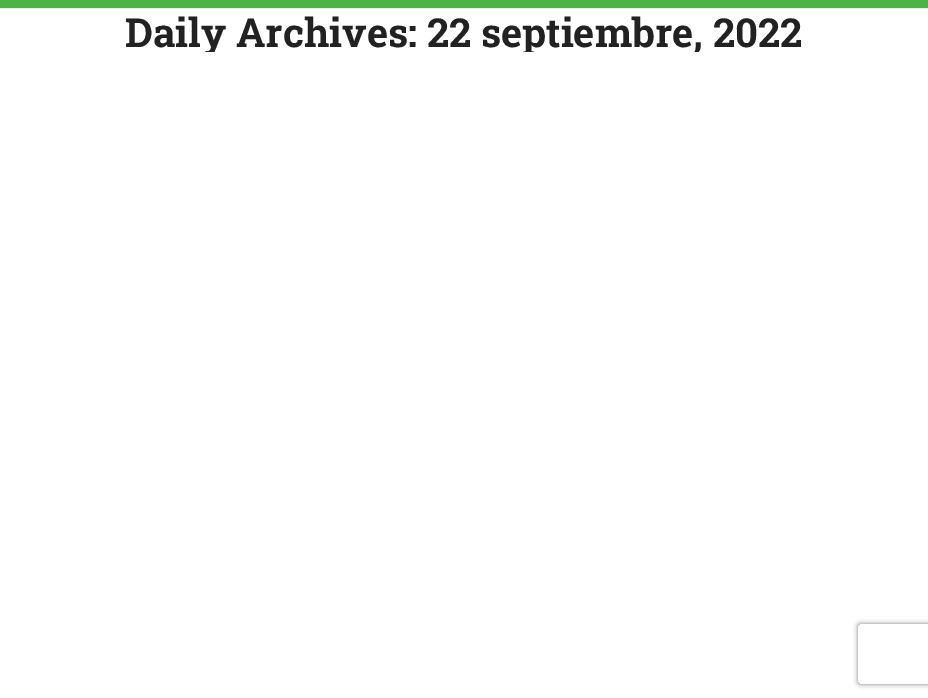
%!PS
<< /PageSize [928 698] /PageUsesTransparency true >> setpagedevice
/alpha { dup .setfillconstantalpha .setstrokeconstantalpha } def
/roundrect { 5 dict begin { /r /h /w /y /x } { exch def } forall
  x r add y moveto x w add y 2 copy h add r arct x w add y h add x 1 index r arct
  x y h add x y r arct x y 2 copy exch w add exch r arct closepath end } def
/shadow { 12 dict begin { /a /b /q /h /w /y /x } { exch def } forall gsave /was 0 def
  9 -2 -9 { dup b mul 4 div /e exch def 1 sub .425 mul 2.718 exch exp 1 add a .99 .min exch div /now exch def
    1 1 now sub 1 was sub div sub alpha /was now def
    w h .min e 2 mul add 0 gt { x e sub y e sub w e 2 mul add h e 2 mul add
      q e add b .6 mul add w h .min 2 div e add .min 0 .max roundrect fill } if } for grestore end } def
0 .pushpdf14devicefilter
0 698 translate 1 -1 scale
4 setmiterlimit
1 setgray
0 0 928 698 rectfill
0.922 setgray
0 8 928 1 rectfill
0.29 0.71 0.251 setrgbcolor
0 0 928 8 rectfill
gsave
125 12 678 40 rectclip
/RobotoSlab-Bold [40 0 0 -40 0 0] selectfont
0.133 setgray
125 47 moveto (Daily Archives: 22 septiembre, 2022) show
grestore
gsave
newpath 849 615 moveto 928 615 lineto 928 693 lineto 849 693 lineto closepath 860 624 moveto 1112 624 lineto 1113 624 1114 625 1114 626 curveto 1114 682 lineto 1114 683 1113 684 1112 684 curveto 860 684 lineto 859 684 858 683 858 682 curveto 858 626 lineto 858 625 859 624 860 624 curveto closepath eoclip newpath
0.502 setgray
858 624 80 60 2 2.5 1 shadow
grestore
.poppdf14devicefilter showpage
